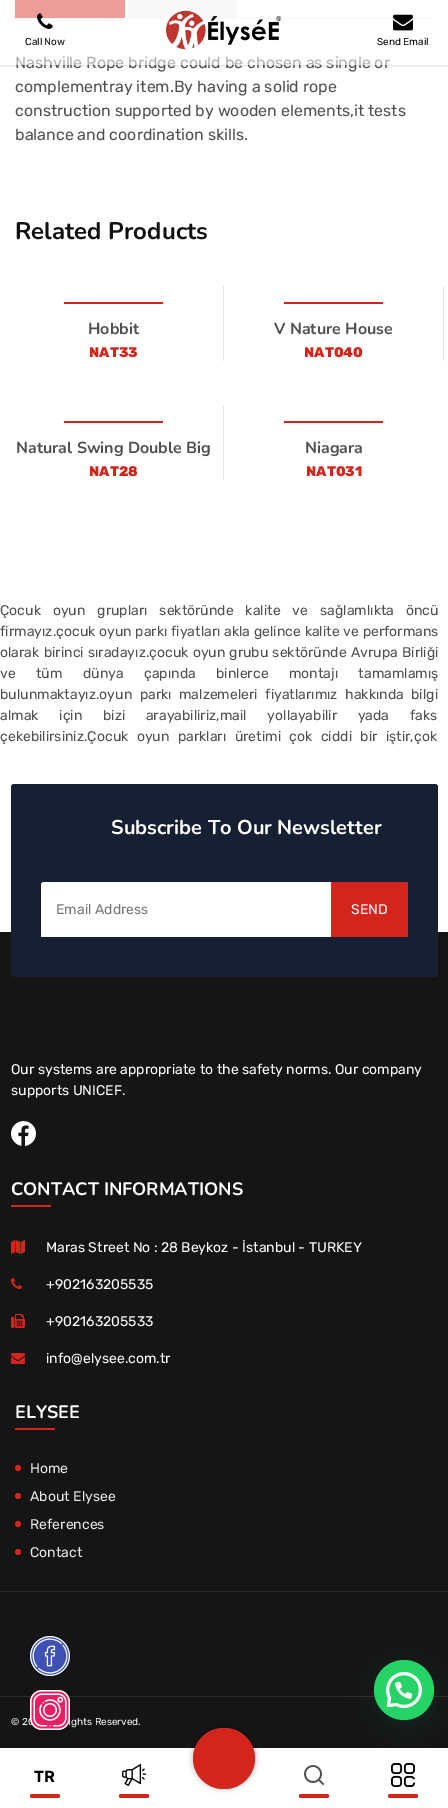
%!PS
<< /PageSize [448 1808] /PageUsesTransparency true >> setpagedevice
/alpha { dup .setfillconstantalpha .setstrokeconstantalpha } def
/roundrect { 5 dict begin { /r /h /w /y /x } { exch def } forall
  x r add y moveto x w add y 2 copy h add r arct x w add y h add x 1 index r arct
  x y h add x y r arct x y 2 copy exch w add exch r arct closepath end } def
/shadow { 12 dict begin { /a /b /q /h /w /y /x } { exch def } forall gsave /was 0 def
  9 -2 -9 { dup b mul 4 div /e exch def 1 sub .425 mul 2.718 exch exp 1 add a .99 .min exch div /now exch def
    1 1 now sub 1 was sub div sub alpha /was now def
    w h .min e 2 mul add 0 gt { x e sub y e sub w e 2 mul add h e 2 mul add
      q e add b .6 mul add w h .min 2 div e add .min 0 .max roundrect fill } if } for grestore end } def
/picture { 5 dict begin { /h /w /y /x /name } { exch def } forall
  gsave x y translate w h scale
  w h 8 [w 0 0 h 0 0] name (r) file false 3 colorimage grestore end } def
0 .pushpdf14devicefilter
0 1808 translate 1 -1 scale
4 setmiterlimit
1 setgray
0 0 448 1808 rectfill
0.941 setgray
15 18 418 1 rectfill
0.831 0.145 0.114 setrgbcolor
15 0 110 18 rectfill
0.941 setgray
128 0 109 18 rectfill
gsave
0 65 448 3 rectclip
0 setgray
0 0 448 65 0 2 0.2 shadow
grestore
/Rubik-Regular [16 0 0 -16 0 0] selectfont
0.314 setgray
15 68 moveto (Nashville Rope bridge could be chosen as single or) show
0.55 alpha
1 setgray
15 0 418 65 rectfill
1 alpha
(img1.rgb) 37 13 16 16 picture
/Rubik-Regular [10 0 0 -10 0 0] selectfont
0 setgray
25 45 moveto (Call Now) show
(img2.rgb) 166 10 116 40 picture
(img3.rgb) 393 14 20 17 picture
377 45 moveto (Send Email) show
/Rubik-SemiBold [16 0 0 -16 0 0] selectfont
34 1782 moveto (TR) show
0.831 0.145 0.114 setrgbcolor
30 1794 30 4 2 roundrect fill
(img4.rgb) 122 1764 24 22 picture
119 1794 30 4 2 roundrect fill
0.082 setgray
0 932 448 816 rectfill
0 setgray
192 1726 64 63 31.5 3 0.2 shadow
0.831 0.145 0.114 setrgbcolor
193 1728 62 61 30.5 roundrect fill
(img5.rgb) 304 1765 20 20 picture
299 1794 30 4 2 roundrect fill
(img6.rgb) 391 1763 24 24 picture
388 1794 30 4 2 roundrect fill
/Rubik-Regular [16 0 0 -16 0 0] selectfont
0.314 setgray
15 92 moveto (complementray item.By having a solid rope) show
15 116 moveto (construction supported by wooden elements,it tests) show
15 140 moveto (balance and coordination skills.) show
/Nunito-Bold [24 0 0 -24 0 0] selectfont
0.067 setgray
15 239 moveto (Related Products) show
0.902 setgray
223 286 1 75 rectfill
0.831 0.145 0.114 setrgbcolor
64 302 99 2 rectfill
/Nunito-Bold [16 0 0 -16 0 0] selectfont
0.314 setgray
88 334 moveto (Hobbit) show
/Rubik-ExtraBold [14 0 0 -14 0 0] selectfont
0.831 0.145 0.114 setrgbcolor
89 357 moveto (NAT33) show
0.902 setgray
443 286 1 75 rectfill
0.831 0.145 0.114 setrgbcolor
284 302 99 2 rectfill
/Nunito-Bold [16 0 0 -16 0 0] selectfont
0.314 setgray
274 334 moveto (V Nature House) show
/Rubik-ExtraBold [14 0 0 -14 0 0] selectfont
0.831 0.145 0.114 setrgbcolor
304 357 moveto (NAT040) show
0.902 setgray
223 406 1 74 rectfill
0.831 0.145 0.114 setrgbcolor
64 421 99 2 rectfill
/Nunito-Bold [16 0 0 -16 0 0] selectfont
0.314 setgray
16 453 moveto (Natural Swing Double Big) show
/Rubik-ExtraBold [14 0 0 -14 0 0] selectfont
0.831 0.145 0.114 setrgbcolor
89 476 moveto (NAT28) show
284 421 99 2 rectfill
/Nunito-Bold [16 0 0 -16 0 0] selectfont
0.314 setgray
305 453 moveto (Niagara) show
/Rubik-ExtraBold [14 0 0 -14 0 0] selectfont
0.831 0.145 0.114 setrgbcolor
306 476 moveto (NAT031) show
/Rubik-Regular [14 0 0 -14 0 0] selectfont
0.314 setgray
0 615 moveto 8.5 0 32 (Çocuk oyun grupları sektöründe kalite ve sağlamlıkta öncü) widthshow
0 636 moveto 0.25 0 32 (firmayız.çocuk oyun parkı fiyatları akla gelince kalite ve performans) widthshow
0 657 moveto 0.75 0 32 (olarak birinci sıradayız.çocuk oyun grubu sektöründe Avrupa Birliği) widthshow
0 678 moveto 17 0 32 (ve tüm dünya çapında binlerce montajı tamamlamış) widthshow
0 699 moveto 4 0 32 (bulunmaktayız.oyun parkı malzemeleri fiyatlarımız hakkında bilgi) widthshow
0 720 moveto 17.25 0 32 (almak için bizi arayabiliriz,mail yollayabilir yada faks) widthshow
0 741 moveto 5 0 32 (çekebilirsiniz.Çocuk oyun parkları üretimi çok ciddi bir iştir,çok) widthshow
0.09 0.122 0.196 setrgbcolor
11 784 427 193 3 roundrect fill
/Nunito-Bold [20 0 0 -20 0 0] selectfont
1 setgray
111 834 moveto (Subscribe To Our Newsletter) show
newpath 44 882 moveto 405 882 lineto 406.5 882 408 883.5 408 885 curveto 408 937 lineto 41 937 lineto 41 885 lineto 41 883.5 42.5 882 44 882 curveto closepath fill
/Rubik-Regular [14 0 0 -14 0 0] selectfont
0.459 setgray
56 914 moveto (Email Address) show
0.831 0.145 0.114 setrgbcolor
newpath 331 882 moveto 405 882 lineto 406.5 882 408 883.5 408 885 curveto 408 937 lineto 331 937 lineto closepath fill
1 setgray
351 914 moveto (SEND) show
11 1074 moveto (Our systems are appropriate to the safety norms. Our company) show
11 1095 moveto (supports UNICEF.) show
(img7.rgb) 11 1121 25 25 picture
/Nunito-Bold [18 0 0 -18 0 0] selectfont
11 1195 moveto (CONTACT INFORMATIONS) show
0.831 0.145 0.114 setrgbcolor
11 1205 40 2 rectfill
(img8.rgb) 11 1240 14 14 picture
/Rubik-Regular [14 0 0 -14 0 0] selectfont
1 setgray
46 1252 moveto (Maras Street No : 28 Beykoz - İstanbul - TURKEY) show
(img9.rgb) 11 1278 11 11 picture
46 1289 moveto (+902163205535) show
(img10.rgb) 11 1314 14 14 picture
46 1326 moveto (+902163205533) show
(img11.rgb) 11 1353 14 11 picture
46 1363 moveto (info@elysee.com.tr) show
/Nunito-Bold [18 0 0 -18 0 0] selectfont
15 1418 moveto (ELYSEE) show
0.831 0.145 0.114 setrgbcolor
15 1428 40 2 rectfill
newpath 18 1468 3 0 360 arc closepath fill
/Rubik-Regular [14 0 0 -14 0 0] selectfont
0.91 setgray
30 1473 moveto (Home) show
0.831 0.145 0.114 setrgbcolor
newpath 18 1496 3 0 360 arc closepath fill
0.91 setgray
30 1501 moveto (About Elysee) show
0.831 0.145 0.114 setrgbcolor
newpath 18 1524 3 0 360 arc closepath fill
0.91 setgray
30 1529 moveto (References) show
0.831 0.145 0.114 setrgbcolor
newpath 18 1552 3 0 360 arc closepath fill
0.91 setgray
30 1557 moveto (Contact) show
0.173 setgray
0 1591 448 1 rectfill
0 1696 448 1 rectfill
/Rubik-Regular [10 0 0 -10 0 0] selectfont
0.953 0.973 0.976 setrgbcolor
11 1725 moveto (© 20) show
71 1725 moveto (ghts Reserved.) show
0.247 0.318 0.71 setrgbcolor
newpath 50 1656 20 0 360 arc closepath fill
(img12.rgb) 30 1636 40 40 picture
0 setgray
30 1690 42 42 13 3 0.15 shadow
0.914 0.118 0.388 setrgbcolor
30 1690 40 40 12 roundrect fill
(img13.rgb) 30 1690 40 40 picture
0.027 0.369 0.329 setrgbcolor
375 1666 60 60 30 12 0.24 shadow
0.145 0.827 0.4 setrgbcolor
newpath 404 1690 30 0 360 arc closepath fill
(img14.rgb) 386 1672 36 36 picture
.poppdf14devicefilter showpage
